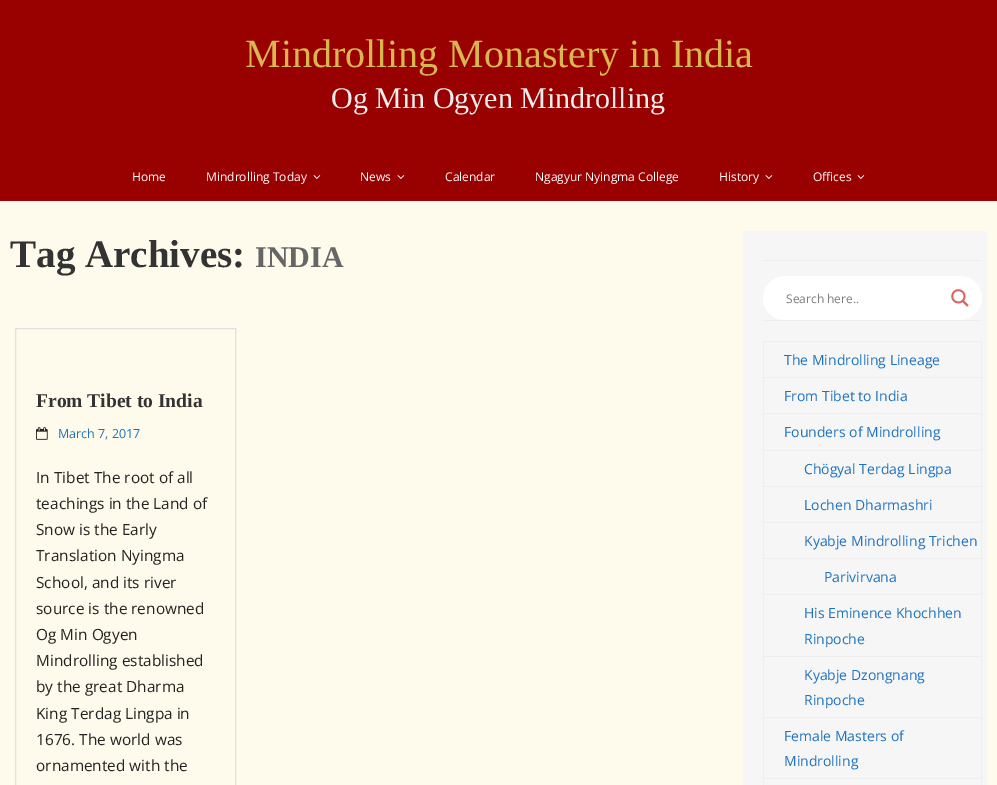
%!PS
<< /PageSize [997 785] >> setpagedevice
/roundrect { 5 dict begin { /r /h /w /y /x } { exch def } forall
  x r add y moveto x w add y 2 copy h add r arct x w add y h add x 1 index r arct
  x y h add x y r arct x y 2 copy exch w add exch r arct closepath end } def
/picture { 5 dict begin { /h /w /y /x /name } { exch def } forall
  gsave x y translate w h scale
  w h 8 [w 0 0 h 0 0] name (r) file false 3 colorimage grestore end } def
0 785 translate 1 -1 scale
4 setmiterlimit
1 0.984 0.925 setrgbcolor
0 0 997 785 rectfill
0.6 0 0 setrgbcolor
0 0 997 201 rectfill
/LiberationSerif-Regular [40 0 0 -40 0 0] selectfont
0.847 0.714 0.314 setrgbcolor
245 67 moveto (Mindrolling Monastery in India) show
/LiberationSerif-Regular [30 0 0 -30 0 0] selectfont
0.933 setgray
331 108 moveto (Og Min Ogyen Mindrolling) show
/OpenSans-Regular [12 0 0 -12 0 0] selectfont
1 setgray
132 181 moveto (Home) show
206 181 moveto (Mindrolling Today) show
(img1.rgb) 313 175 8 4 picture
360 181 moveto (News) show
(img1.rgb) 397 175 8 4 picture
445 181 moveto (Calendar) show
535 181 moveto (Ngagyur Nyingma College) show
719 181 moveto (History) show
(img1.rgb) 765 175 8 4 picture
813 181 moveto (Offices) show
(img1.rgb) 857 175 8 4 picture
/LiberationSerif-Bold [39 0 0 -39 0 0] selectfont
0.2 setgray
10 267 moveto (Tag Archives:) show
/LiberationSerif-Bold [30 0 0 -30 0 0] selectfont
0.4 setgray
255 267 moveto (INDIA) show
0.878 setgray
15.5 328.5 220 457 rectstroke
/LiberationSerif-Bold [19.5 0 0 -19.5 0 0] selectfont
0.2 setgray
36 407 moveto (From Tibet to India) show
(img2.rgb) 36 427 12 13 picture
/OpenSans-Regular [12.5 0 0 -12.5 0 0] selectfont
0.118 0.451 0.745 setrgbcolor
58 438 moveto (March 7, 2017) show
/OpenSans-Regular [15.4 0 0 -15.4 0 0] selectfont
0.137 setgray
36 483 moveto (In Tibet The root of all) show
36 509 moveto (teachings in the Land of) show
36 535 moveto (Snow is the Early) show
36 561 moveto (Translation Nyingma) show
36 588 moveto (School, and its river) show
36 614 moveto (source is the renowned) show
36 640 moveto (Og Min Ogyen) show
36 666 moveto (Mindrolling established) show
36 692 moveto (by the great Dharma) show
36 719 moveto (King Terdag Lingpa in) show
36 745 moveto (1676. The world was) show
36 771 moveto (ornamented with the) show
0.965 setgray
743 231 244 554 rectfill
0.933 setgray
763 320 219 1 rectfill
763 260 219 1 rectfill
1 setgray
763 276 219 44 22 roundrect fill
/OpenSans-Regular [12 0 0 -12 0 0] selectfont
0.49 setgray
786 303 moveto (Search here..) show
(img3.rgb) 951 289 18 18 picture
0.933 setgray
763 341 219 1 rectfill
981 341 1 444 rectfill
763 341 1 444 rectfill
764 377 217 1 rectfill
/OpenSans-Regular [14 0 0 -14 0 0] selectfont
0.118 0.451 0.745 setrgbcolor
784 365 moveto (The Mindrolling Lineage) show
0.933 setgray
764 413 217 1 rectfill
0.118 0.451 0.745 setrgbcolor
784 401 moveto (From Tibet to India) show
0.933 setgray
764 717 217 1 rectfill
0.118 0.451 0.745 setrgbcolor
784 437 moveto (Founders of Mindrolling) show
0.933 setgray
764 450 217 1 rectfill
764 486 217 1 rectfill
0.118 0.451 0.745 setrgbcolor
804 474 moveto (Chögyal Terdag Lingpa) show
0.933 setgray
764 522 217 1 rectfill
0.118 0.451 0.745 setrgbcolor
804 510 moveto (Lochen Dharmashri) show
0.933 setgray
764 594 217 1 rectfill
0.118 0.451 0.745 setrgbcolor
804 546 moveto (Kyabje Mindrolling Trichen) show
0.933 setgray
764 558 217 1 rectfill
0.118 0.451 0.745 setrgbcolor
824 582 moveto (Parivirvana) show
0.933 setgray
764 656 217 1 rectfill
0.118 0.451 0.745 setrgbcolor
804 618 moveto (His Eminence Khochhen) show
804 644 moveto (Rinpoche) show
804 680 moveto (Kyabje Dzongnang) show
804 705 moveto (Rinpoche) show
0.933 setgray
764 778 217 1 rectfill
0.118 0.451 0.745 setrgbcolor
784 741 moveto (Female Masters of) show
784 766 moveto (Mindrolling) show
showpage
